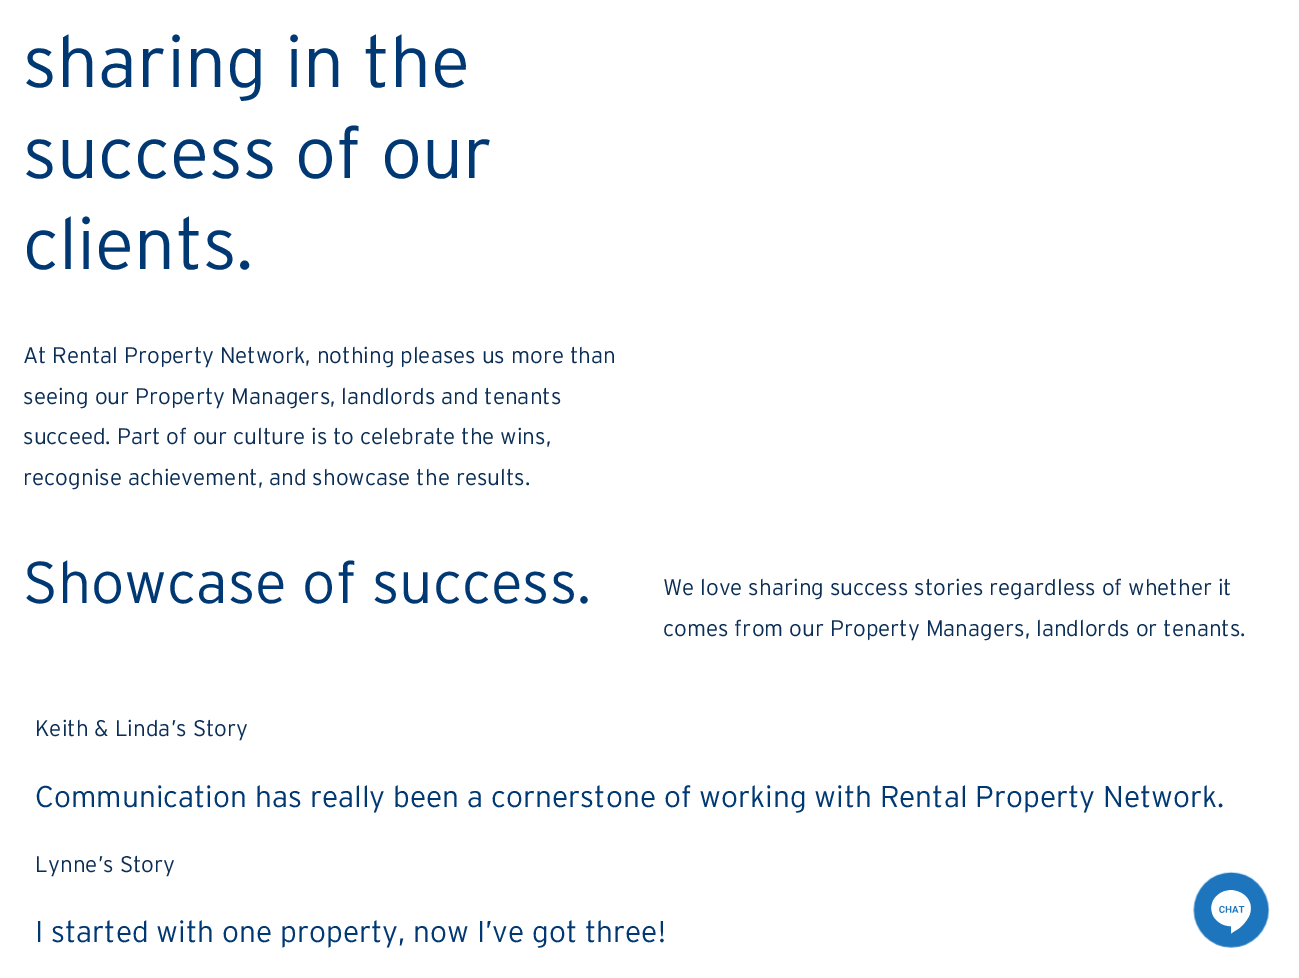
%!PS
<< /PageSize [1299 978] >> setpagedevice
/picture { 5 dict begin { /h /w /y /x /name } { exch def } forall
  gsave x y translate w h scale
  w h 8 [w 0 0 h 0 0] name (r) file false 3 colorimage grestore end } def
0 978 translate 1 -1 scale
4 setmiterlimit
1 setgray
0 0 1299 978 rectfill
/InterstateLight-Light [72.5 0 0 -72.5 0 0] selectfont
0 0.22 0.451 setrgbcolor
23 87 moveto (sharing in the) show
23 178 moveto (success of our) show
23 269 moveto (clients.) show
/InterstateLight-Light [22.5 0 0 -22.5 0 0] selectfont
0.043 0.18 0.337 setrgbcolor
23 363 moveto (At Rental Property Network, nothing pleases us more than) show
23 404 moveto (seeing our Property Managers, landlords and tenants) show
23 444 moveto (succeed. Part of our culture is to celebrate the wins,) show
23 485 moveto (recognise achievement, and showcase the results.) show
/InterstateLight-Light [58.75 0 0 -58.75 0 0] selectfont
0 0.22 0.451 setrgbcolor
23 603 moveto (Showcase of success.) show
/InterstateLight-Light [22.5 0 0 -22.5 0 0] selectfont
0.043 0.18 0.337 setrgbcolor
663 595 moveto (We love sharing success stories regardless of whether it) show
663 636 moveto (comes from our Property Managers, landlords or tenants.) show
35 736 moveto (Keith & Linda’s Story) show
/InterstateLight-Light [30 0 0 -30 0 0] selectfont
0 0.22 0.451 setrgbcolor
35 807 moveto (Communication has really been a cornerstone of working with Rental Property Network.) show
/InterstateLight-Light [22.5 0 0 -22.5 0 0] selectfont
0.043 0.18 0.337 setrgbcolor
35 872 moveto (Lynne’s Story) show
/InterstateLight-Light [30 0 0 -30 0 0] selectfont
0 0.22 0.451 setrgbcolor
35 942 moveto (I started with one property, now I’ve got three!) show
(img1.rgb) 1193 871 77 77 picture
showpage
